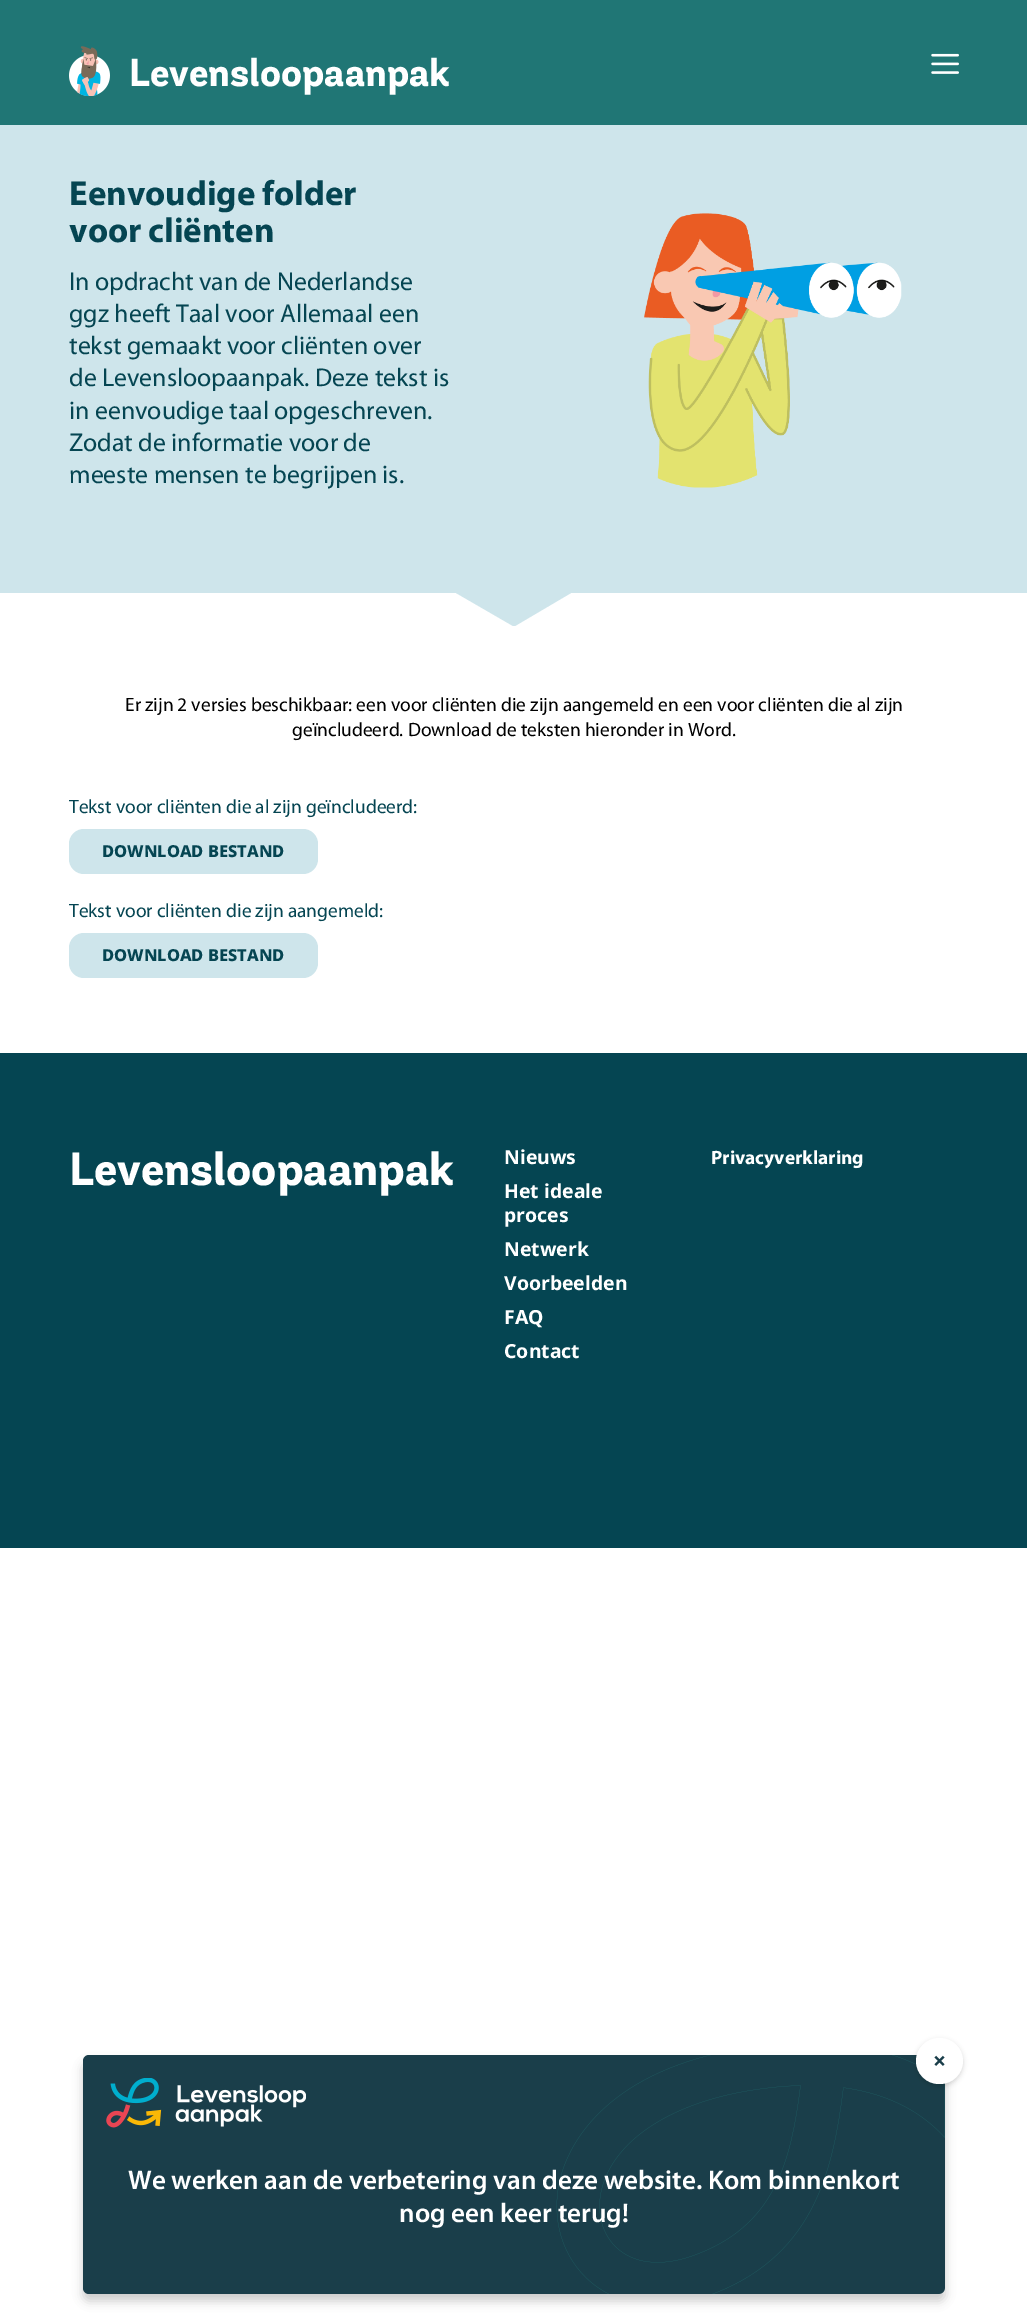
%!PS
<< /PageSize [1027 2314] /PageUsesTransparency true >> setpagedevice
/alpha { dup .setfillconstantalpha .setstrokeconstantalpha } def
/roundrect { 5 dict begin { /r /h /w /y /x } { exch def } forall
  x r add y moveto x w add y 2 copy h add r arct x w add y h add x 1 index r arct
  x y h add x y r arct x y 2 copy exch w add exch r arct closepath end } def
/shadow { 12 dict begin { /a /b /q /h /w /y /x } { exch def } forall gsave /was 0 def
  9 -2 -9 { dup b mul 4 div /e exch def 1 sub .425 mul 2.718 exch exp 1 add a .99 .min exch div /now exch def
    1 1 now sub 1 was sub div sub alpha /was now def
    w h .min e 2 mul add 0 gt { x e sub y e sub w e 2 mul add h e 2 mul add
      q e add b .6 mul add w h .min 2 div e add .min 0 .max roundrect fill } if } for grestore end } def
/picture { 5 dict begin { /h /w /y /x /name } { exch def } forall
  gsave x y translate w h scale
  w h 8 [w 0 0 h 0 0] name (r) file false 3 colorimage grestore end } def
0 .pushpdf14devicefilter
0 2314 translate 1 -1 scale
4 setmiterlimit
1 setgray
0 0 1027 2314 rectfill
0.125 0.463 0.459 setrgbcolor
0 0 1027 125 rectfill
(img1.rgb) 69 46 41 50 picture
/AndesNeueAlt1-Bold [38.75 0 0 -38.75 0 0] selectfont
1 setgray
129 86 moveto (Levensloopaanpak) show
(img2.rgb) 931 53 28 21 picture
0.808 0.898 0.922 setrgbcolor
0 125 1027 468 rectfill
/Myriad-Bold [35 0 0 -35 0 0] selectfont
0.02 0.271 0.322 setrgbcolor
69 205 moveto (Eenvoudige folder) show
69 242 moveto (voor cliënten) show
/Myriad-Regular [25.8 0 0 -25.8 0 0] selectfont
69 290 moveto (In opdracht van de Nederlandse) show
69 322 moveto (ggz heeft Taal voor Allemaal een) show
69 354 moveto (tekst gemaakt voor cliënten over) show
69 386 moveto (de Levensloopaanpak. Deze tekst is) show
69 419 moveto (in eenvoudige taal opgeschreven.) show
69 451 moveto (Zodat de informatie voor de) show
69 483 moveto (meeste mensen te begrijpen is.) show
(img3.rgb) 644 213 258 275 picture
0.808 0.898 0.922 setrgbcolor
newpath 513 626 moveto 456 593 lineto 571 593 lineto 515 626 lineto closepath fill
/Myriad-Regular [19.4 0 0 -19.4 0 0] selectfont
0 setgray
125 711 moveto (Er zijn 2 versies beschikbaar: een voor cliënten die zijn aangemeld en een voor cliënten die al zijn) show
292 736 moveto (geïncludeerd. Download de teksten hieronder in Word.) show
0.02 0.271 0.322 setrgbcolor
69 813 moveto (Tekst voor cliënten die al zijn geïncludeerd:) show
0.808 0.898 0.922 setrgbcolor
69 829 249 45 15 roundrect fill
/NotoSans-ExtraBold [16.5 0 0 -16.5 0 0] selectfont
0.02 0.271 0.322 setrgbcolor
102 857 moveto (DOWNLOAD BESTAND) show
/Myriad-Regular [19.4 0 0 -19.4 0 0] selectfont
69 917 moveto (Tekst voor cliënten die zijn aangemeld:) show
0.808 0.898 0.922 setrgbcolor
69 933 249 45 15 roundrect fill
/NotoSans-ExtraBold [16.5 0 0 -16.5 0 0] selectfont
0.02 0.271 0.322 setrgbcolor
102 961 moveto (DOWNLOAD BESTAND) show
0 1053 1027 495 rectfill
/AndesNeueAlt1-Bold [46.5 0 0 -46.5 0 0] selectfont
1 setgray
69 1185 moveto (Levensloopaanpak) show
/NotoSans-Bold [19.4 0 0 -19.4 0 0] selectfont
504 1164 moveto (Nieuws) show
504 1198 moveto (Het ideale) show
504 1222 moveto (proces) show
504 1256 moveto (Netwerk) show
504 1290 moveto (Voorbeelden) show
504 1324 moveto (FAQ) show
504 1358 moveto (Contact) show
/Myriad-Bold [19.4 0 0 -19.4 0 0] selectfont
711 1164 moveto (Privacyverklaring) show
0 setgray
83 2063 862 238 6 5 0.2 shadow
0.102 0.243 0.29 setrgbcolor
83 2055 862 239 6 roundrect fill
(img4.rgb) 556 2055 389 239 picture
0 setgray
916 2040 47 46 23 2.5 0.16 shadow
1 setgray
916 2038 47 46 23 roundrect fill
/NotoSans-Bold [23 0 0 -23 0 0] selectfont
0.102 0.243 0.29 setrgbcolor
933 2069 moveto (×) show
(img5.rgb) 106 2078 200 50 picture
/Myriad-SemiBold [27.2 0 0 -27.2 0 0] selectfont
1 setgray
128 2189 moveto (We werken aan de verbetering van deze website. Kom binnenkort) show
399 2222 moveto (nog een keer terug!) show
.poppdf14devicefilter showpage
